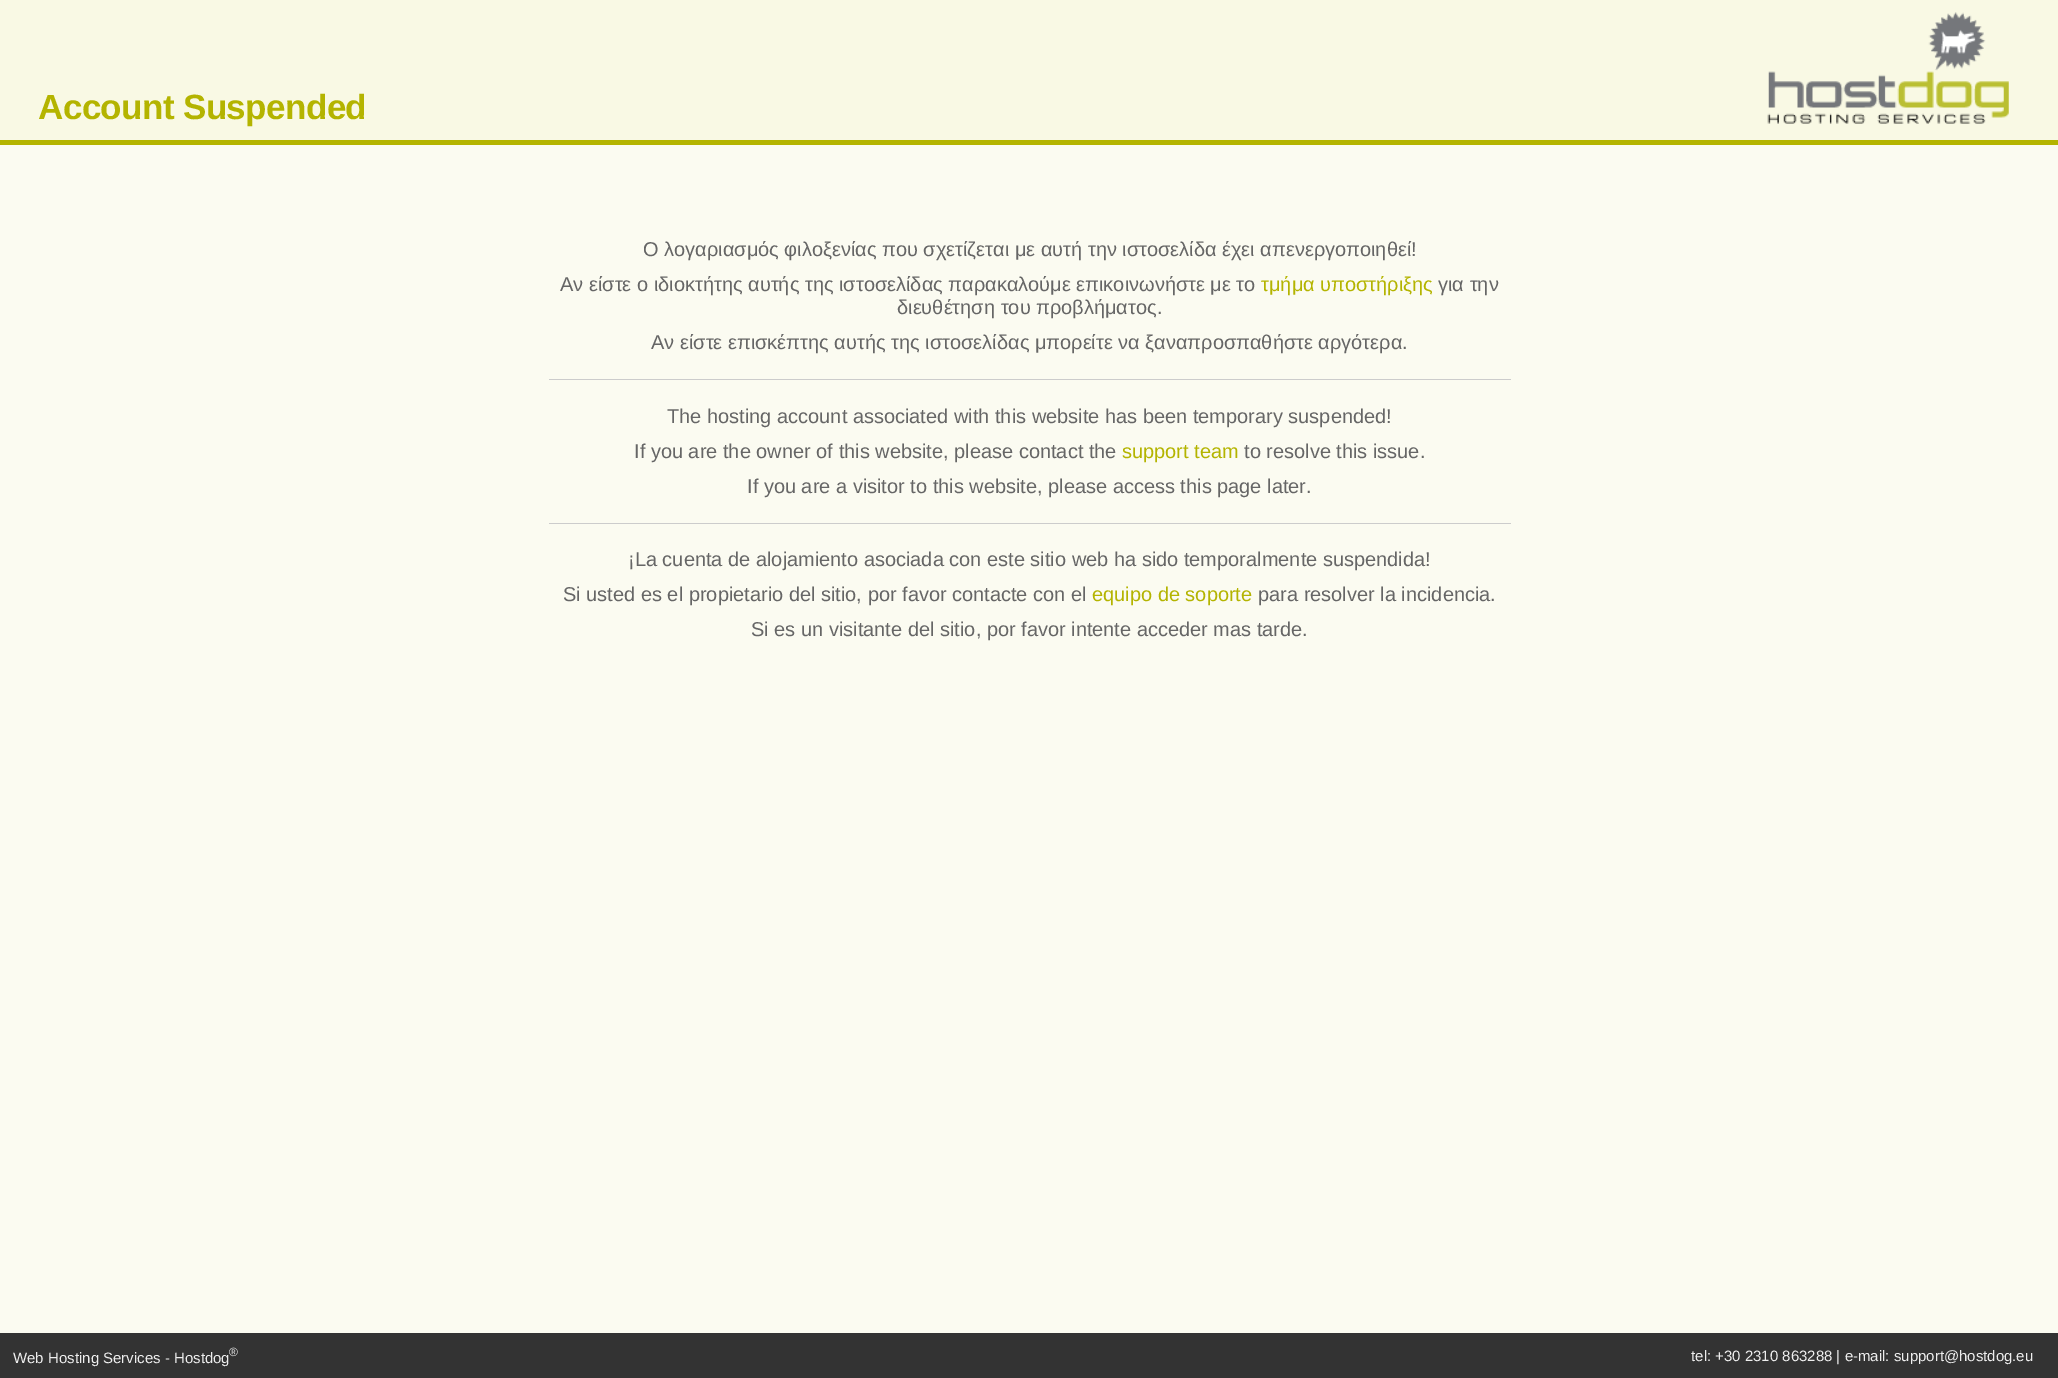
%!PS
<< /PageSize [2058 1378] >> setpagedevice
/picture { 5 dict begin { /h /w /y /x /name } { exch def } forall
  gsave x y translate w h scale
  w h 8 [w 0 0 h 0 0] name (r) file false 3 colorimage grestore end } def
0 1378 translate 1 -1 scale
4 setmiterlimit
0.984 0.984 0.945 setrgbcolor
0 0 2058 1378 rectfill
0.976 0.976 0.894 setrgbcolor
0 0 2058 140 rectfill
0.706 0.706 0 setrgbcolor
0 140 2058 5 rectfill
/LiberationSans-Bold [35 0 0 -35 0 0] selectfont
38 119 moveto -0.6 0 (Account Suspended) ashow
(img1.rgb) 1767 12 242 112 picture
/LiberationSans-Regular [20 0 0 -20 0 0] selectfont
0.4 setgray
643 256 moveto (Ο λογαριασμός φιλοξενίας που σχετίζεται με αυτή την ιστοσελίδα έχει απενεργοποιηθεί!) show
560 291 moveto (Αν είστε ο ιδιοκτήτης αυτής της ιστοσελίδας παρακαλούμε επικοινωνήστε με το) show
0.706 0.706 0 setrgbcolor
1261 291 moveto (τμήμα υποστήριξης) show
0.4 setgray
1438 291 moveto (για την) show
897 314 moveto (διευθέτηση του προβλήματος.) show
651 349 moveto (Αν είστε επισκέπτης αυτής της ιστοσελίδας μπορείτε να ξαναπροσπαθήστε αργότερα.) show
0.8 setgray
549 379 962 1 rectfill
0.4 setgray
667 423 moveto (The hosting account associated with this website has been temporary suspended!) show
634 458 moveto (If you are the owner of this website, please contact the) show
0.706 0.706 0 setrgbcolor
1122 458 moveto (support team) show
0.4 setgray
1244 458 moveto (to resolve this issue.) show
747 493 moveto (If you are a visitor to this website, please access this page later.) show
0.8 setgray
549 523 962 1 rectfill
0.4 setgray
628 566 moveto (¡La cuenta de alojamiento asociada con este sitio web ha sido temporalmente suspendida!) show
563 601 moveto (Si usted es el propietario del sitio, por favor contacte con el) show
0.706 0.706 0 setrgbcolor
1092 601 moveto (equipo de soporte) show
0.4 setgray
1258 601 moveto (para resolver la incidencia.) show
751 636 moveto (Si es un visitante del sitio, por favor intente acceder mas tarde.) show
0.2 setgray
0 1333 2058 45 rectfill
/LiberationSans-Regular [15 0 0 -15 0 0] selectfont
0.933 setgray
13 1363 moveto (Web Hosting Services - Hostdog) show
/LiberationSans-Regular [12 0 0 -12 0 0] selectfont
229 1356 moveto (®) show
/LiberationSans-Regular [15 0 0 -15 0 0] selectfont
1691 1361 moveto (tel: +30 2310 863288 | e-mail: support@hostdog.eu) show
showpage
